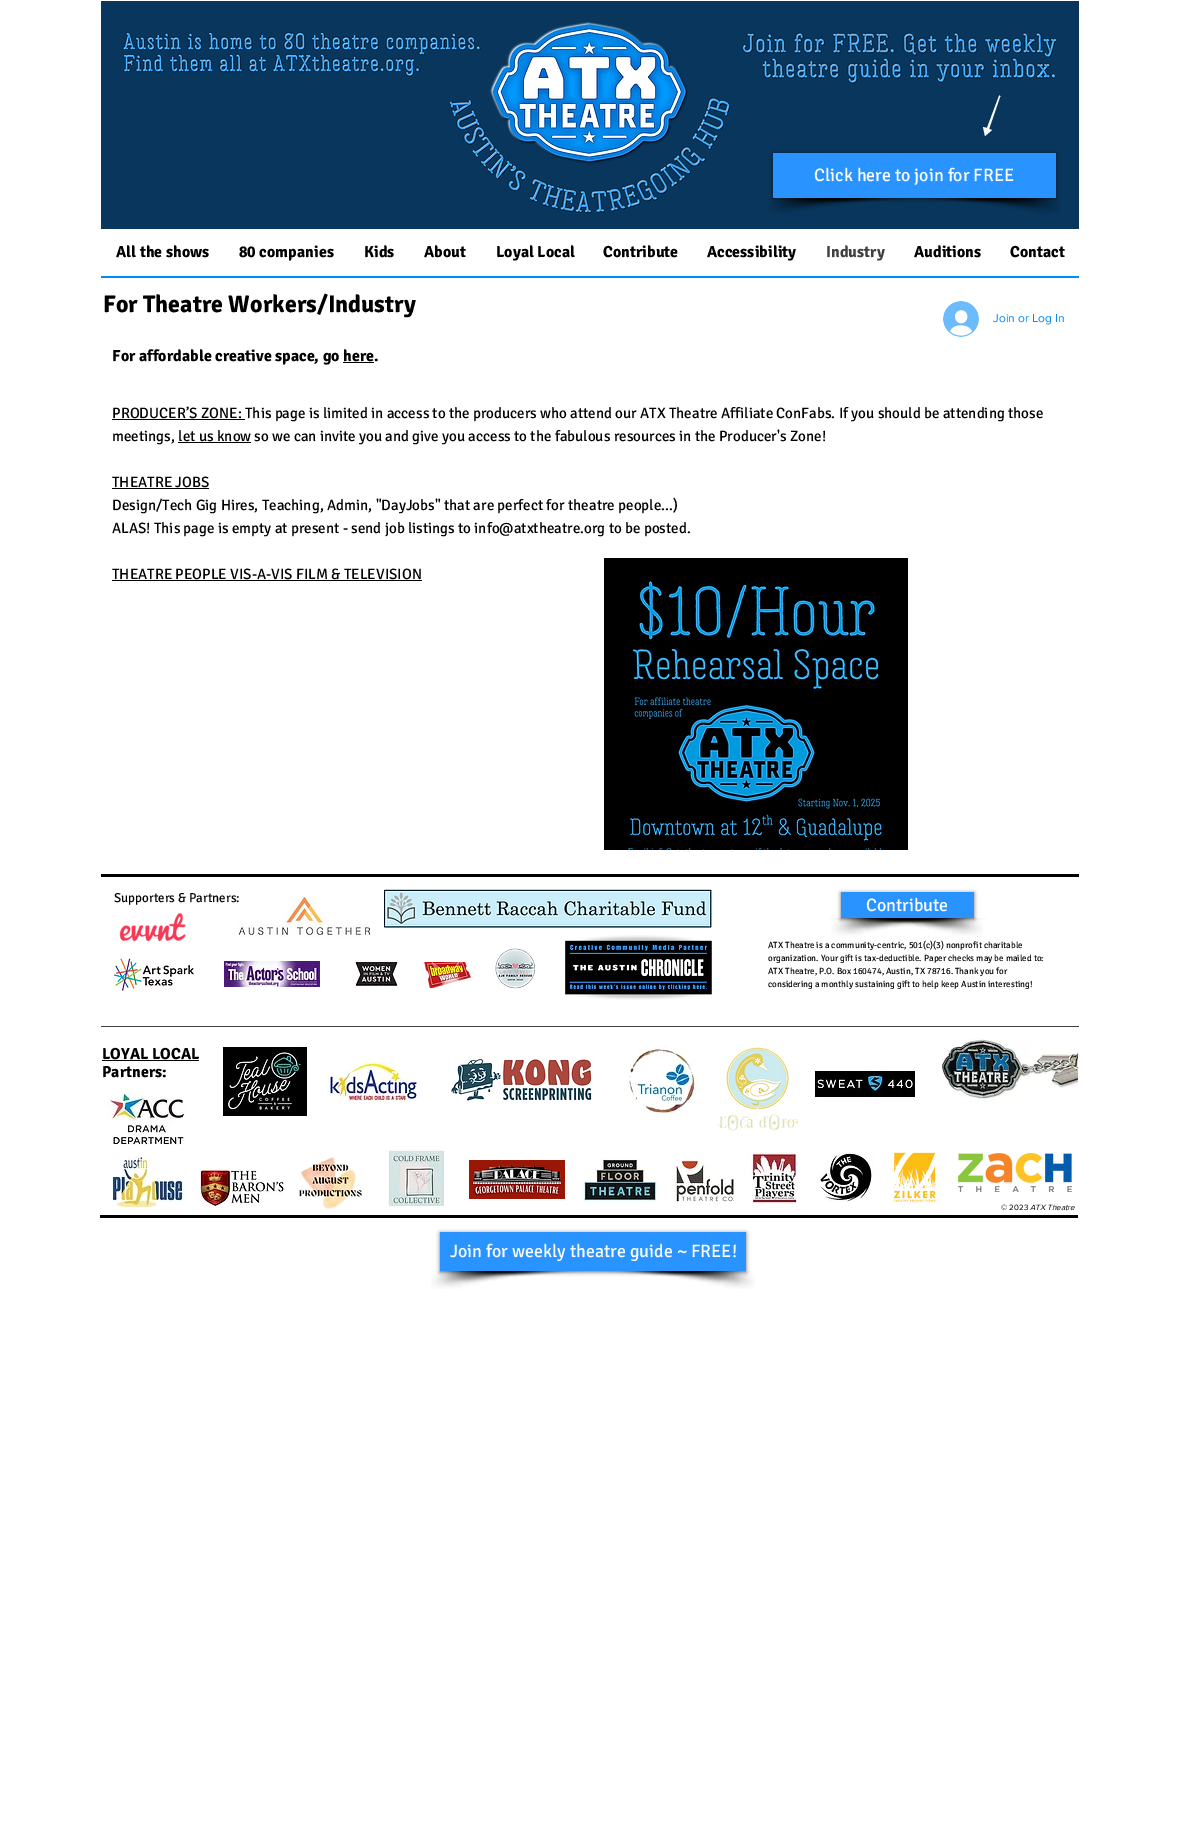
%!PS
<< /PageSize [1182 1848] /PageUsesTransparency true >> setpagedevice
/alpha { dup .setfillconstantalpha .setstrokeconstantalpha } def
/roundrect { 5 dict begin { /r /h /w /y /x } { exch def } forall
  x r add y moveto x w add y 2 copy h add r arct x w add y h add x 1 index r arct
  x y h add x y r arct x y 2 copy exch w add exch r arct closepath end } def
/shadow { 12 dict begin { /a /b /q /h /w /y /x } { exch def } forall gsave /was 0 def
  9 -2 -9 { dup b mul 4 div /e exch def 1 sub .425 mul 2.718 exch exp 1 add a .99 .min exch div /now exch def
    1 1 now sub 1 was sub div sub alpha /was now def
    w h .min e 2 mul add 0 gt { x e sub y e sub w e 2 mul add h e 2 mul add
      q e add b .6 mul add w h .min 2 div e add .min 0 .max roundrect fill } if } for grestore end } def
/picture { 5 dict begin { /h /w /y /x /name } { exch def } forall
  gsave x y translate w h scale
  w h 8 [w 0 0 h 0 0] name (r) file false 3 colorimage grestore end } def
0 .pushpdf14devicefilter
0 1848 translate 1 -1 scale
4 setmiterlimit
1 setgray
0 0 1182 1848 rectfill
(img1.rgb) 101 1 978 228 picture
newpath 999 96 moveto 987 128 lineto 983 127 lineto 985 136 lineto 992 130 lineto 989 129 lineto 1000 97 lineto 1001 96 999 95 999 96 curveto closepath fill
(img2.rgb) 768 198 137 16 picture
(img3.rgb) 924 198 137 16 picture
0 setgray
773 154 283 45 0 2 0.6 shadow
0.161 0.58 1 setrgbcolor
773 153 283 45 rectfill
/Signika-Regular [18 0 0 -18 0 0] selectfont
1 setgray
814 181 moveto (Click here to join for FREE) show
/Signika-Bold [16 0 0 -16 0 0] selectfont
0 setgray
116 257 moveto (All the shows) show
239 257 moveto (80 companies) show
364 257 moveto (Kids) show
424 257 moveto (About) show
496 257 moveto (Loyal Local) show
603 257 moveto (Contribute) show
707 257 moveto (Accessibility) show
0.251 setgray
826 257 moveto (Industry) show
0 setgray
914 257 moveto (Auditions) show
1010 257 moveto (Contact) show
0 0.541 0.988 setrgbcolor
101 276 978 2 rectfill
/Signika-Bold [24 0 0 -24 0 0] selectfont
0 setgray
103 312 moveto (For Theatre Workers/Industry) show
(img4.rgb) 943 301 36 36 picture
/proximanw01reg-Regular [12 0 0 -12 0 0] selectfont
0 0.541 0.988 setrgbcolor
993 322 moveto (Join or Log In) show
/Signika-Bold [16 0 0 -16 0 0] selectfont
0 setgray
112 361 moveto (For affordable creative space, go here.) show
343 362 31 1 rectfill
112 419 133 1 rectfill
/Signika-Regular [15 0 0 -15 0 0] selectfont
112 418 moveto (PRODUCER’S ZONE: This page is limited in access to the producers who attend our ATX Theatre Affiliate ConFabs. If you should be attending those) show
112 441 moveto (meetings, let us know so we can invite you and give you access to the fabulous resources in the Producer's Zone!) show
178 442 73 1 rectfill
112 487 moveto (THEATRE JOBS) show
112 488 97 1 rectfill
112 510 moveto (Design/Tech Gig Hires, Teaching, Admin, "DayJobs" that are perfect for theatre people...\)) show
112 533 moveto (ALAS! This page is empty at present - send job listings to info@atxtheatre.org to be posted.) show
112 579 moveto (THEATRE PEOPLE VIS-A-VIS FILM & TELEVISION) show
112 580 310 1 rectfill
(img5.rgb) 604 558 304 292 picture
101 874 978 3 rectfill
/Signika-Regular [13 0 0 -13 0 0] selectfont
114 902 moveto (Supporters & Partners:) show
(img6.rgb) 239 896 131 41 picture
(img7.rgb) 384 889 328 39 picture
(img9.rgb) 832 918 154 18 picture
(img8.rgb) 829 918 154 18 picture
841 893 133 26 0 2 0.6 shadow
0.161 0.58 1 setrgbcolor
841 892 133 26 rectfill
/Signika-Regular [18 0 0 -18 0 0] selectfont
1 setgray
866 911 moveto (Contribute) show
(img10.rgb) 119 913 67 29 picture
(img11.rgb) 114 958 80 33 picture
(img12.rgb) 224 961 96 26 picture
(img13.rgb) 353 962 46 24 picture
(img14.rgb) 424 962 47 26 picture
(img15.rgb) 495 948 40 41 picture
(img16.rgb) 565 935 147 65 picture
/Signika-Regular [9 0 0 -9 0 0] selectfont
0 setgray
768 948 moveto (ATX Theatre is a community-centric, 501\(c\)\(3\) nonprofit charitable) show
768 961 moveto (organization. Your gift is tax-deductible. Paper checks may be mailed to:) show
768 974 moveto (ATX Theatre, P.O. Box 160474, Austin, TX 78716. Thank you for) show
768 987 moveto (considering a monthly sustaining gift to help keep Austin interesting!) show
0.259 setgray
101 1026 978 1 rectfill
/Signika-Bold [16 0 0 -16 0 0] selectfont
0 setgray
102 1059 moveto (LOYAL LOCAL) show
102 1060 97 1 rectfill
102 1077 moveto (Partners:) show
(img17.rgb) 223 1047 84 69 picture
(img18.rgb) 327 1062 96 39 picture
(img19.rgb) 451 1059 141 42 picture
(img20.rgb) 627 1046 69 68 picture
(img21.rgb) 726 1047 63 63 picture
(img22.rgb) 815 1071 100 26 picture
(img23.rgb) 942 1038 136 63 picture
(img24.rgb) 107 1092 79 53 picture
(img25.rgb) 717 1114 82 17 picture
(img26.rgb) 111 1157 76 50 picture
(img27.rgb) 199 1169 88 37 picture
(img28.rgb) 299 1157 63 52 picture
(img29.rgb) 386 1149 60 59 picture
(img30.rgb) 469 1160 96 39 picture
(img31.rgb) 581 1158 77 45 picture
(img32.rgb) 674 1159 60 44 picture
(img33.rgb) 748 1152 49 51 picture
(img34.rgb) 819 1151 56 51 picture
(img35.rgb) 893 1152 43 51 picture
(img36.rgb) 958 1153 114 39 picture
/proximanw01reg-Regular [8 0 0 -8 0 0] selectfont
1001 1210 moveto (© 2023) show
/proximanw01reg-Italic [8 0 0 -8 0 0] selectfont
1030 1210 moveto (ATX Theatre) show
100 1215 978 3 rectfill
(img9.rgb) 431 1271 154 18 picture
(img37.rgb) 601 1271 154 18 picture
440 1233 306 39 0 2 0.6 shadow
0.161 0.58 1 setrgbcolor
440 1232 306 39 rectfill
/Signika-Regular [18 0 0 -18 0 0] selectfont
1 setgray
450 1257 moveto (Join for weekly theatre guide ~ FREE!) show
.poppdf14devicefilter showpage
